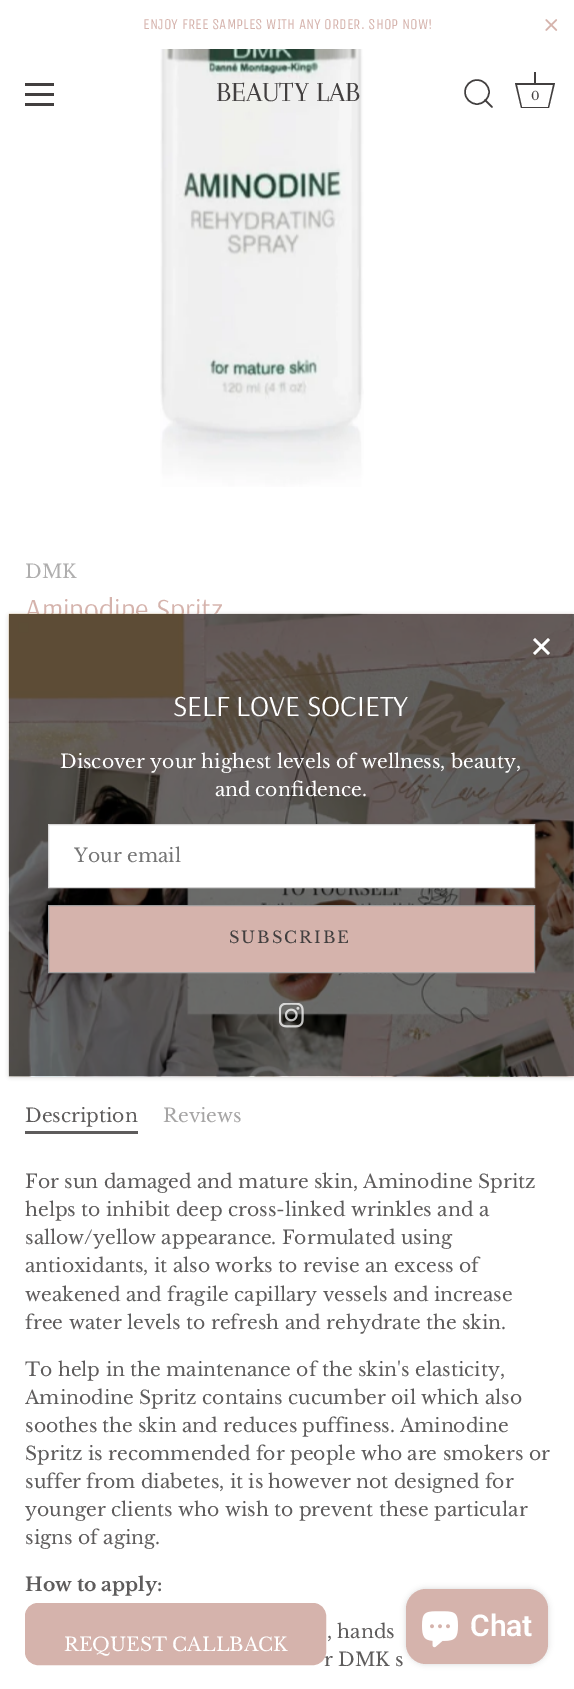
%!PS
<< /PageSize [574 1689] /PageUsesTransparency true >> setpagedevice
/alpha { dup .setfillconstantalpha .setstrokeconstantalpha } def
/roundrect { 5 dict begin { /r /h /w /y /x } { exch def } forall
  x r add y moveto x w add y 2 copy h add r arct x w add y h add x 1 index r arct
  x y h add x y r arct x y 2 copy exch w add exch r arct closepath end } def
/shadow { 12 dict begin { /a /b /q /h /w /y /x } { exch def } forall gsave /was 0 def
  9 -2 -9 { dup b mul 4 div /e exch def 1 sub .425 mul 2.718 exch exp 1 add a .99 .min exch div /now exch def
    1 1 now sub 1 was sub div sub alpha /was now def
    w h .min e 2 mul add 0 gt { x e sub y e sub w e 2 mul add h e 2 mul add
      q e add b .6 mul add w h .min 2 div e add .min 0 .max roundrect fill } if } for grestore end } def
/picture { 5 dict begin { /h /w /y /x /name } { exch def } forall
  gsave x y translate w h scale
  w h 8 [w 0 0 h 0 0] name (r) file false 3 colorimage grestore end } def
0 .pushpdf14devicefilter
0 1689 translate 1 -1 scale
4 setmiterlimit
1 setgray
0 0 574 1689 rectfill
/UnicaOne-Regular [15 0 0 -15 0 0] selectfont
0.835 0.702 0.675 setrgbcolor
143 29 moveto (ENJOY FREE SAMPLES WITH ANY ORDER. SHOP NOW!) show
(img1.rgb) 545 19 13 12 picture
0.259 0.247 0.247 setrgbcolor
25 83 29 3 rectfill
25 93 29 3 rectfill
25 103 29 3 rectfill
(img2.rgb) 160 49 204 438 picture
/Arapey-Regular [28.75 0 0 -28.75 0 0] selectfont
216 101 moveto (BEAUTY LAB) show
1.5 setlinewidth
newpath 477 92 12 0 360 arc closepath stroke
1 setlinecap
1 setlinejoin
newpath 492 107 moveto 485 100 lineto stroke
534 72 2 11 rectfill
newpath 553 85 moveto 548 107 lineto 522 107 lineto 517 85 lineto 553 85 lineto 555 83 moveto 515 83 lineto 521 108 lineto 549 108 lineto closepath fill
/LibreBaskerville-Regular [12 0 0 -12 0 0] selectfont
531 100 moveto (0) show
/LibreBaskerville-Regular [18.75 0 0 -18.75 0 0] selectfont
0.686 0.682 0.682 setrgbcolor
25 578 moveto (DMK) show
/Arsenal-Regular [29.25 0 0 -29.25 0 0] selectfont
0.835 0.702 0.675 setrgbcolor
25 619 moveto (Aminodine Spritz) show
/LibreBaskerville-Regular [18.75 0 0 -18.75 0 0] selectfont
0.369 0.361 0.361 setrgbcolor
25 1122 moveto (Description) show
25 1131 113 3 rectfill
0.651 0.647 0.647 setrgbcolor
163 1122 moveto (Reviews) show
0.369 0.361 0.361 setrgbcolor
25 1188 moveto (For sun damaged and mature skin, Aminodine Spritz) show
25 1216 moveto (helps to inhibit deep cross-linked wrinkles and a) show
25 1244 moveto (sallow/yellow appearance. Formulated using) show
25 1272 moveto (antioxidants, it also works to revise an excess of) show
25 1301 moveto (weakened and fragile capillary vessels and increase) show
25 1329 moveto (free water levels to refresh and rehydrate the skin.) show
25 1376 moveto (To help in the maintenance of the skin's elasticity,) show
25 1404 moveto (Aminodine Spritz contains cucumber oil which also) show
25 1432 moveto -0.5 0 32 (soothes the skin and reduces puffiness. Aminodine) widthshow
25 1460 moveto (Spritz is recommended for people who are smokers or) show
25 1488 moveto -0.25 0 32 (suffer from diabetes, it is however not designed for) widthshow
25 1516 moveto (younger clients who wish to prevent these particular) show
25 1544 moveto (signs of aging.) show
/LibreBaskerville-Bold [18.75 0 0 -18.75 0 0] selectfont
25 1591 moveto (How to apply:) show
/LibreBaskerville-Regular [18.75 0 0 -18.75 0 0] selectfont
327 1638 moveto (, hands) show
324 1666 moveto (r DMK s) show
0 setgray
10 616 563 460 0 2.5 0.3 shadow
(img3.rgb) 8 613 566 464 picture
0.56 alpha
9 614 565 462 rectfill
1 alpha
1 setgray
2.5 setlinewidth
0 setlinecap
0 setlinejoin
newpath 549 639 moveto 534 654 lineto 534 639 moveto 549 654 lineto stroke
/Arsenal-Regular [29.25 0 0 -29.25 0 0] selectfont
173 716 moveto (SELF LOVE SOCIETY) show
/LibreBaskerville-Regular [18.75 0 0 -18.75 0 0] selectfont
60 768 moveto (Discover your highest levels of wellness, beauty,) show
215 796 moveto -1 0 32 (and confidence.) widthshow
newpath 48.5 824.5 moveto 534.5 824.5 lineto 534.5 887.5 lineto 48.5 887.5 lineto closepath gsave fill grestore
0.843 0.839 0.839 setrgbcolor
1 setlinewidth
stroke
0.459 setgray
74 862 moveto (Your email) show
0.835 0.702 0.675 setrgbcolor
newpath 48.5 905.5 moveto 534.5 905.5 lineto 534.5 972.5 lineto 48.5 972.5 lineto closepath gsave fill grestore
0.62 0.616 0.616 setrgbcolor
stroke
/LibreBaskerville-Regular [16.25 0 0 -16.25 0 0] selectfont
0.259 0.247 0.247 setrgbcolor
229 943 moveto 2 0 (SUBSCRIBE) ashow
(img4.rgb) 279 1003 25 25 picture
0 setgray
406 1589 142 75 20 3 0.15 shadow
0.835 0.702 0.675 setrgbcolor
406 1589 142 75 20 roundrect fill
(img5.rgb) 422 1611 36 37 picture
/Roboto-SemiBold [30 0 0 -30 0 0] selectfont
1 setgray
470 1636 moveto (Chat) show
0.835 0.702 0.675 setrgbcolor
25.5 1603.5 300 61 12.5 roundrect gsave fill grestore
stroke
/LibreBaskerville-Regular [18.75 0 0 -18.75 0 0] selectfont
1 setgray
64 1651 moveto (REQUEST CALLBACK) show
.poppdf14devicefilter showpage
